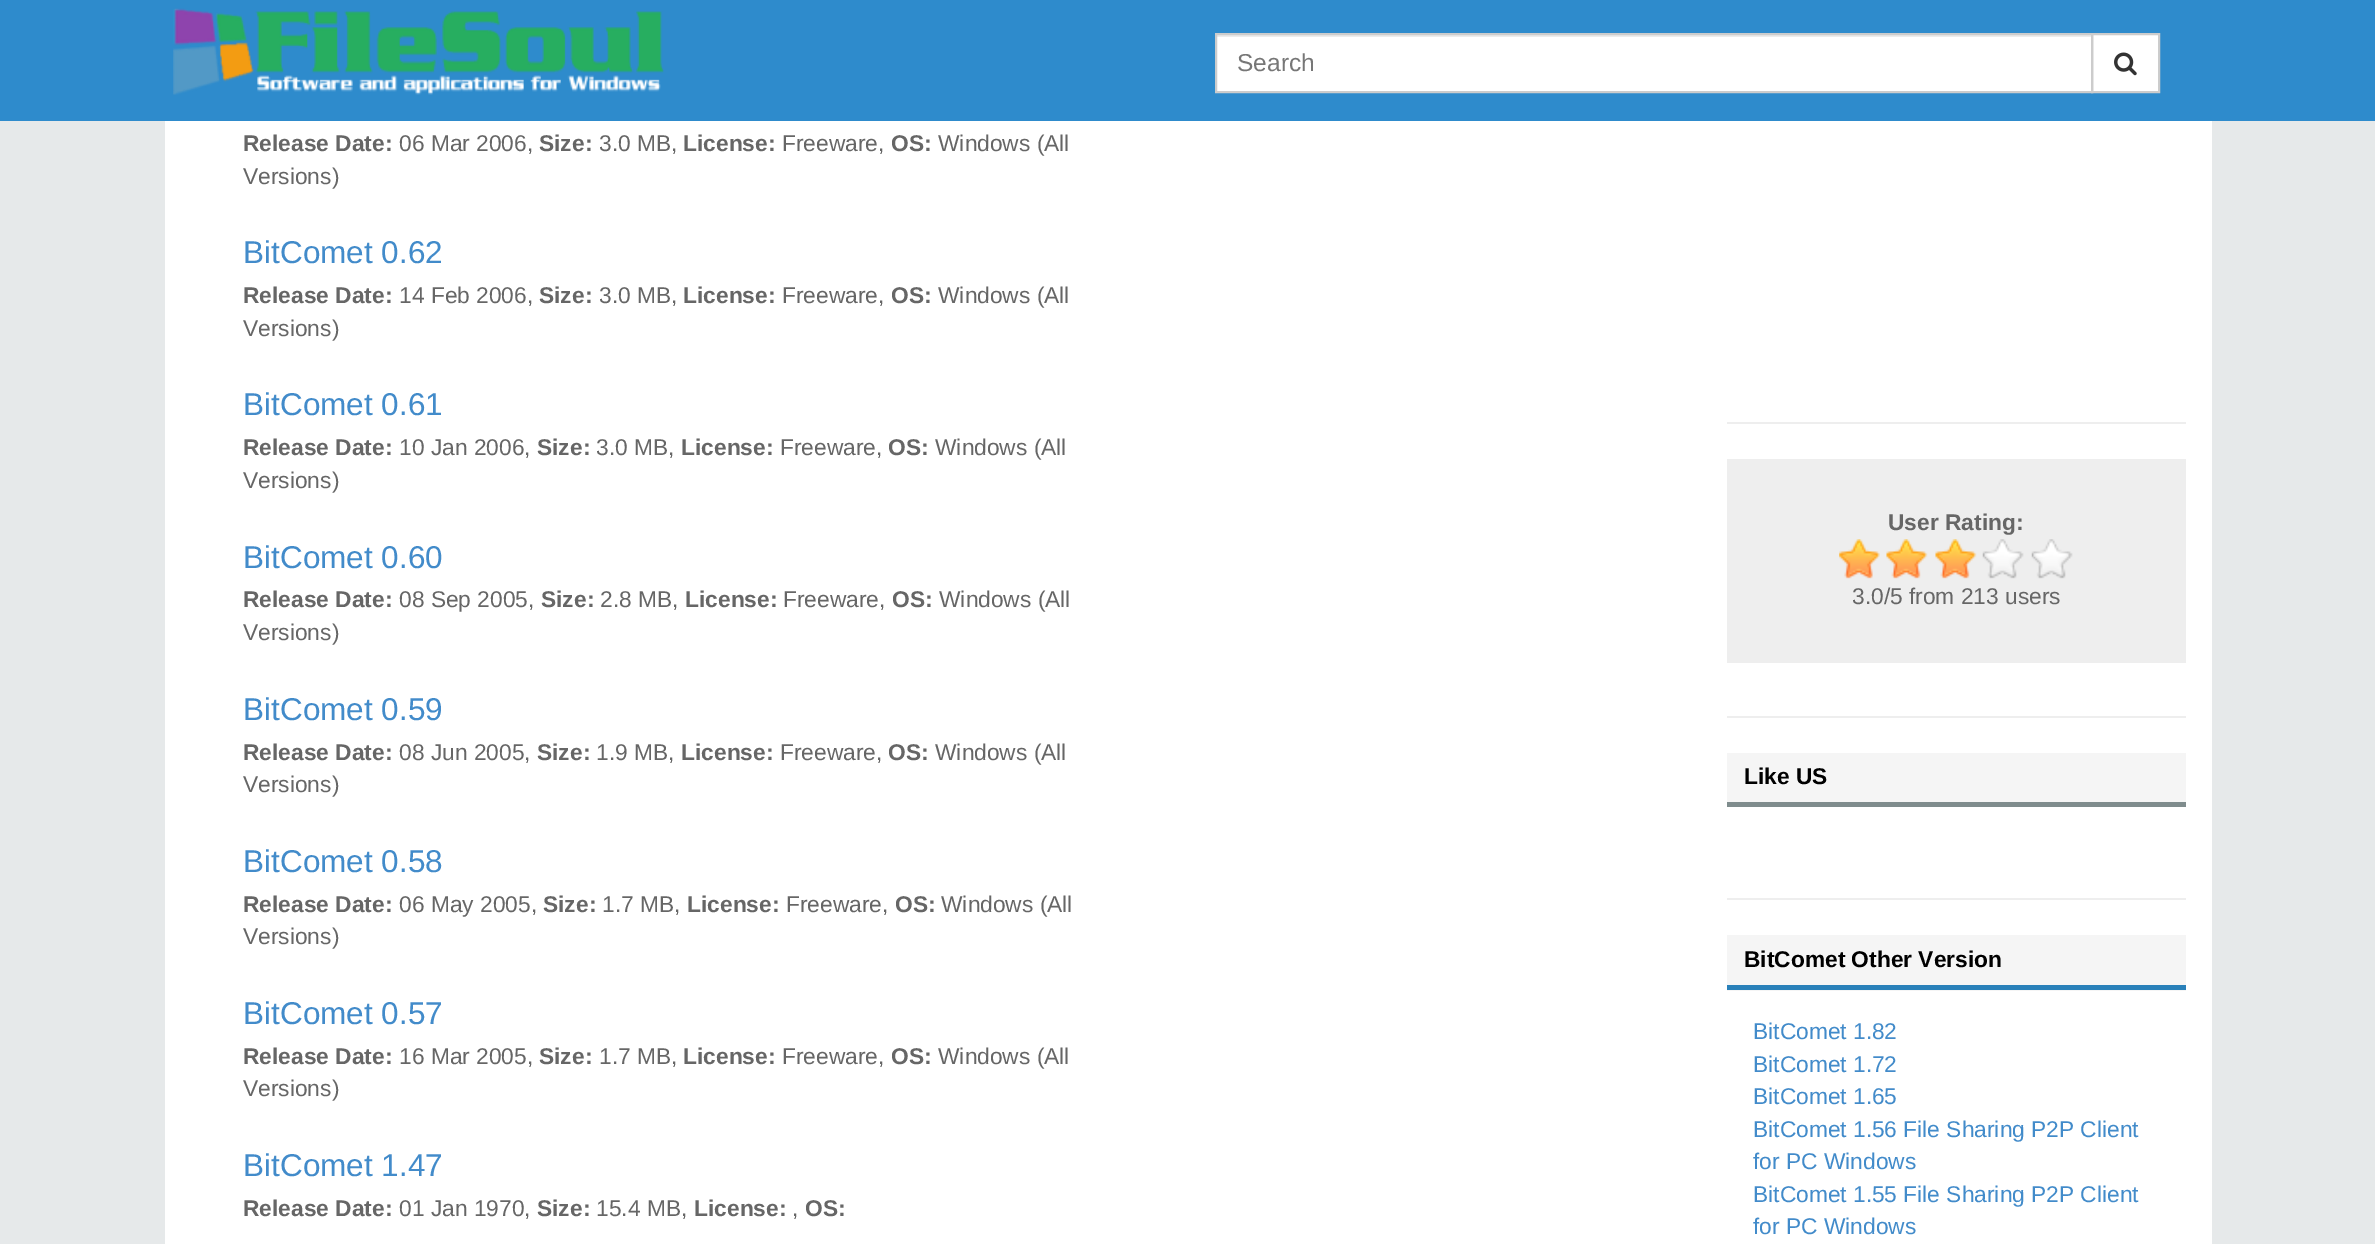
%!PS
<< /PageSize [2375 1244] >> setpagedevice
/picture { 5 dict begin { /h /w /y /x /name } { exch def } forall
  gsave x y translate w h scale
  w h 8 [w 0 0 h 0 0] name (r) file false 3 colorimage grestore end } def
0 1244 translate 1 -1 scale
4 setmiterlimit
0.902 0.914 0.918 setrgbcolor
0 0 2375 1244 rectfill
0.18 0.545 0.8 setrgbcolor
0 0 2375 121 rectfill
(img1.rgb) 173 8 491 87 picture
1 setgray
1217 37 874 54 rectfill
0.925 setgray
1216 35 875 2 rectfill
1 setgray
newpath 2092 34 moveto 2159 34 lineto 2159 92 lineto 2092 92 lineto closepath gsave fill grestore
0.8 setgray
2 setlinewidth
stroke
1216 34 876 58 rectstroke
/LiberationSans-Regular [24.5 0 0 -24.5 0 0] selectfont
0.467 setgray
1237 71 moveto (Search) show
(img2.rgb) 2114 52 23 24 picture
1 setgray
165 121 2047 1123 rectfill
/LiberationSans-Bold [22.75 0 0 -22.75 0 0] selectfont
0.4 setgray
243 151 moveto (Release Date:) show
/LiberationSans-Regular [22.75 0 0 -22.75 0 0] selectfont
399 151 moveto (06 Mar 2006,) show
/LiberationSans-Bold [22.75 0 0 -22.75 0 0] selectfont
539 151 moveto (Size:) show
/LiberationSans-Regular [22.75 0 0 -22.75 0 0] selectfont
599 151 moveto (3.0 MB,) show
/LiberationSans-Bold [22.75 0 0 -22.75 0 0] selectfont
683 151 moveto (License:) show
/LiberationSans-Regular [22.75 0 0 -22.75 0 0] selectfont
782 151 moveto (Freeware,) show
/LiberationSans-Bold [22.75 0 0 -22.75 0 0] selectfont
891 151 moveto (OS:) show
/LiberationSans-Regular [22.75 0 0 -22.75 0 0] selectfont
938 151 moveto (Windows \(All) show
243 184 moveto (Versions\)) show
/LiberationSans-Regular [31.5 0 0 -31.5 0 0] selectfont
0.259 0.545 0.792 setrgbcolor
243 263 moveto (BitComet 0.62) show
/LiberationSans-Bold [22.75 0 0 -22.75 0 0] selectfont
0.4 setgray
243 303 moveto (Release Date:) show
/LiberationSans-Regular [22.75 0 0 -22.75 0 0] selectfont
399 303 moveto (14 Feb 2006,) show
/LiberationSans-Bold [22.75 0 0 -22.75 0 0] selectfont
539 303 moveto (Size:) show
/LiberationSans-Regular [22.75 0 0 -22.75 0 0] selectfont
599 303 moveto (3.0 MB,) show
/LiberationSans-Bold [22.75 0 0 -22.75 0 0] selectfont
683 303 moveto (License:) show
/LiberationSans-Regular [22.75 0 0 -22.75 0 0] selectfont
782 303 moveto (Freeware,) show
/LiberationSans-Bold [22.75 0 0 -22.75 0 0] selectfont
891 303 moveto (OS:) show
/LiberationSans-Regular [22.75 0 0 -22.75 0 0] selectfont
938 303 moveto (Windows \(All) show
243 336 moveto (Versions\)) show
/LiberationSans-Regular [31.5 0 0 -31.5 0 0] selectfont
0.259 0.545 0.792 setrgbcolor
243 415 moveto (BitComet 0.61) show
/LiberationSans-Bold [22.75 0 0 -22.75 0 0] selectfont
0.4 setgray
243 455 moveto (Release Date:) show
/LiberationSans-Regular [22.75 0 0 -22.75 0 0] selectfont
399 455 moveto (10 Jan 2006,) show
/LiberationSans-Bold [22.75 0 0 -22.75 0 0] selectfont
537 455 moveto (Size:) show
/LiberationSans-Regular [22.75 0 0 -22.75 0 0] selectfont
596 455 moveto (3.0 MB,) show
/LiberationSans-Bold [22.75 0 0 -22.75 0 0] selectfont
681 455 moveto (License:) show
/LiberationSans-Regular [22.75 0 0 -22.75 0 0] selectfont
780 455 moveto (Freeware,) show
/LiberationSans-Bold [22.75 0 0 -22.75 0 0] selectfont
888 455 moveto (OS:) show
/LiberationSans-Regular [22.75 0 0 -22.75 0 0] selectfont
935 455 moveto (Windows \(All) show
243 488 moveto (Versions\)) show
/LiberationSans-Regular [31.5 0 0 -31.5 0 0] selectfont
0.259 0.545 0.792 setrgbcolor
243 568 moveto (BitComet 0.60) show
/LiberationSans-Bold [22.75 0 0 -22.75 0 0] selectfont
0.4 setgray
243 607 moveto (Release Date:) show
/LiberationSans-Regular [22.75 0 0 -22.75 0 0] selectfont
399 607 moveto (08 Sep 2005,) show
/LiberationSans-Bold [22.75 0 0 -22.75 0 0] selectfont
541 607 moveto (Size:) show
/LiberationSans-Regular [22.75 0 0 -22.75 0 0] selectfont
600 607 moveto (2.8 MB,) show
/LiberationSans-Bold [22.75 0 0 -22.75 0 0] selectfont
685 607 moveto (License:) show
/LiberationSans-Regular [22.75 0 0 -22.75 0 0] selectfont
783 607 moveto (Freeware,) show
/LiberationSans-Bold [22.75 0 0 -22.75 0 0] selectfont
892 607 moveto (OS:) show
/LiberationSans-Regular [22.75 0 0 -22.75 0 0] selectfont
939 607 moveto (Windows \(All) show
243 640 moveto (Versions\)) show
/LiberationSans-Regular [31.5 0 0 -31.5 0 0] selectfont
0.259 0.545 0.792 setrgbcolor
243 720 moveto (BitComet 0.59) show
/LiberationSans-Bold [22.75 0 0 -22.75 0 0] selectfont
0.4 setgray
243 760 moveto (Release Date:) show
/LiberationSans-Regular [22.75 0 0 -22.75 0 0] selectfont
399 760 moveto (08 Jun 2005,) show
/LiberationSans-Bold [22.75 0 0 -22.75 0 0] selectfont
537 760 moveto (Size:) show
/LiberationSans-Regular [22.75 0 0 -22.75 0 0] selectfont
596 760 moveto (1.9 MB,) show
/LiberationSans-Bold [22.75 0 0 -22.75 0 0] selectfont
681 760 moveto (License:) show
/LiberationSans-Regular [22.75 0 0 -22.75 0 0] selectfont
780 760 moveto (Freeware,) show
/LiberationSans-Bold [22.75 0 0 -22.75 0 0] selectfont
888 760 moveto (OS:) show
/LiberationSans-Regular [22.75 0 0 -22.75 0 0] selectfont
935 760 moveto (Windows \(All) show
243 792 moveto (Versions\)) show
/LiberationSans-Regular [31.5 0 0 -31.5 0 0] selectfont
0.259 0.545 0.792 setrgbcolor
243 872 moveto (BitComet 0.58) show
/LiberationSans-Bold [22.75 0 0 -22.75 0 0] selectfont
0.4 setgray
243 912 moveto (Release Date:) show
/LiberationSans-Regular [22.75 0 0 -22.75 0 0] selectfont
399 912 moveto (06 May 2005,) show
/LiberationSans-Bold [22.75 0 0 -22.75 0 0] selectfont
543 912 moveto (Size:) show
/LiberationSans-Regular [22.75 0 0 -22.75 0 0] selectfont
602 912 moveto (1.7 MB,) show
/LiberationSans-Bold [22.75 0 0 -22.75 0 0] selectfont
687 912 moveto (License:) show
/LiberationSans-Regular [22.75 0 0 -22.75 0 0] selectfont
786 912 moveto (Freeware,) show
/LiberationSans-Bold [22.75 0 0 -22.75 0 0] selectfont
895 912 moveto (OS:) show
/LiberationSans-Regular [22.75 0 0 -22.75 0 0] selectfont
941 912 moveto (Windows \(All) show
243 944 moveto (Versions\)) show
/LiberationSans-Regular [31.5 0 0 -31.5 0 0] selectfont
0.259 0.545 0.792 setrgbcolor
243 1024 moveto (BitComet 0.57) show
/LiberationSans-Bold [22.75 0 0 -22.75 0 0] selectfont
0.4 setgray
243 1064 moveto (Release Date:) show
/LiberationSans-Regular [22.75 0 0 -22.75 0 0] selectfont
399 1064 moveto (16 Mar 2005,) show
/LiberationSans-Bold [22.75 0 0 -22.75 0 0] selectfont
539 1064 moveto (Size:) show
/LiberationSans-Regular [22.75 0 0 -22.75 0 0] selectfont
599 1064 moveto (1.7 MB,) show
/LiberationSans-Bold [22.75 0 0 -22.75 0 0] selectfont
683 1064 moveto (License:) show
/LiberationSans-Regular [22.75 0 0 -22.75 0 0] selectfont
782 1064 moveto (Freeware,) show
/LiberationSans-Bold [22.75 0 0 -22.75 0 0] selectfont
891 1064 moveto (OS:) show
/LiberationSans-Regular [22.75 0 0 -22.75 0 0] selectfont
938 1064 moveto (Windows \(All) show
243 1096 moveto (Versions\)) show
/LiberationSans-Regular [31.5 0 0 -31.5 0 0] selectfont
0.259 0.545 0.792 setrgbcolor
243 1176 moveto (BitComet 1.47) show
/LiberationSans-Bold [22.75 0 0 -22.75 0 0] selectfont
0.4 setgray
243 1216 moveto (Release Date:) show
/LiberationSans-Regular [22.75 0 0 -22.75 0 0] selectfont
399 1216 moveto (01 Jan 1970,) show
/LiberationSans-Bold [22.75 0 0 -22.75 0 0] selectfont
537 1216 moveto (Size:) show
/LiberationSans-Regular [22.75 0 0 -22.75 0 0] selectfont
596 1216 moveto (15.4 MB,) show
/LiberationSans-Bold [22.75 0 0 -22.75 0 0] selectfont
694 1216 moveto (License:) show
/LiberationSans-Regular [22.75 0 0 -22.75 0 0] selectfont
792 1216 moveto (,) show
/LiberationSans-Bold [22.75 0 0 -22.75 0 0] selectfont
805 1216 moveto (OS:) show
0.933 setgray
1727 422 459 2 rectfill
1727 459 459 204 rectfill
0.4 setgray
1888 530 moveto (User Rating:) show
(img3.rgb) 1839 539 41 40 picture
(img4.rgb) 1886 539 42 40 picture
(img4.rgb) 1935 539 42 40 picture
(img5.rgb) 1982 539 42 40 picture
(img6.rgb) 2031 539 42 40 picture
/LiberationSans-Regular [22.75 0 0 -22.75 0 0] selectfont
1852 604 moveto (3.0/5 from 213 users) show
0.933 setgray
1727 716 459 2 rectfill
0.961 setgray
1727 753 459 49 rectfill
0.498 0.549 0.553 setrgbcolor
1727 802 459 5 rectfill
/LiberationSans-Bold [22.75 0 0 -22.75 0 0] selectfont
0 setgray
1744 784 moveto (Like US) show
0.933 setgray
1727 898 459 2 rectfill
0.961 setgray
1727 935 459 56 rectfill
0.161 0.502 0.725 setrgbcolor
1727 985 459 5 rectfill
0 setgray
1744 967 moveto (BitComet Other Version) show
/LiberationSans-Regular [22.75 0 0 -22.75 0 0] selectfont
0.259 0.545 0.792 setrgbcolor
1753 1039 moveto (BitComet 1.82) show
1753 1072 moveto (BitComet 1.72) show
1753 1104 moveto (BitComet 1.65) show
1753 1137 moveto (BitComet 1.56 File Sharing P2P Client) show
1753 1169 moveto (for PC Windows) show
1753 1202 moveto (BitComet 1.55 File Sharing P2P Client) show
1753 1234 moveto (for PC Windows) show
showpage
